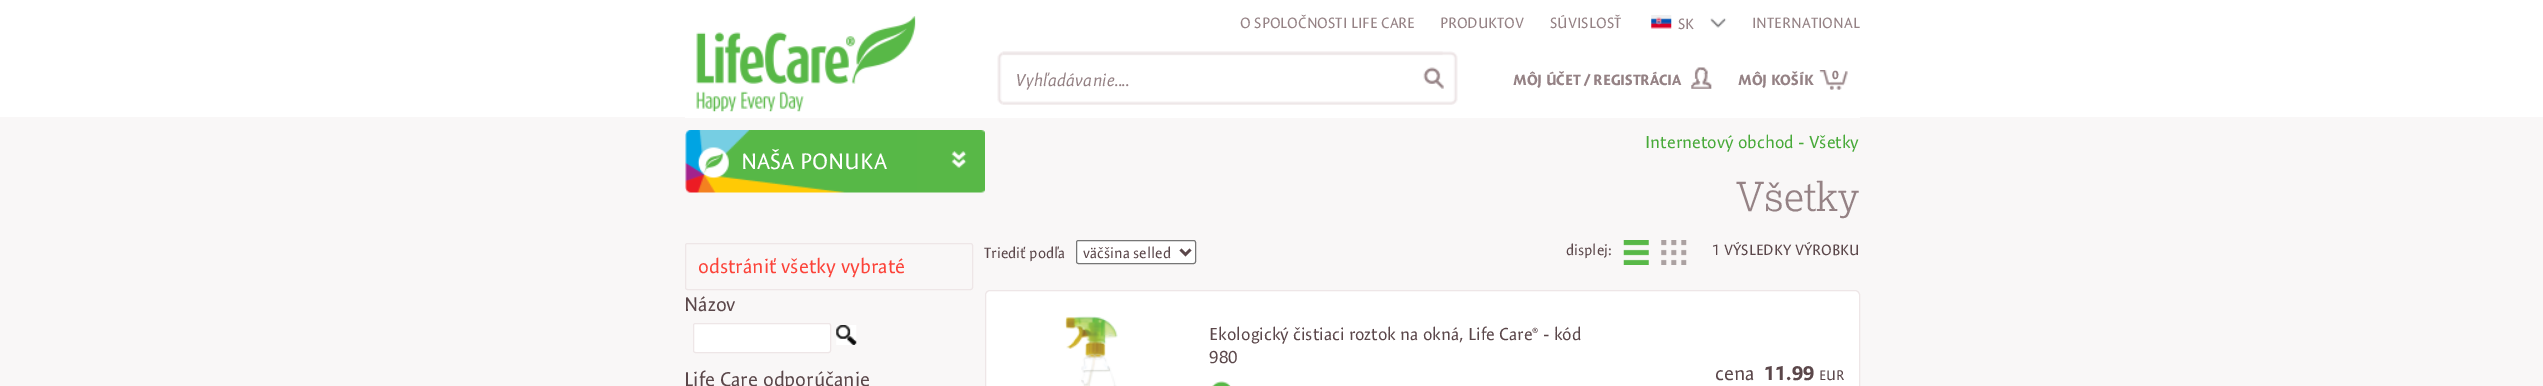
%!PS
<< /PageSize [2543 386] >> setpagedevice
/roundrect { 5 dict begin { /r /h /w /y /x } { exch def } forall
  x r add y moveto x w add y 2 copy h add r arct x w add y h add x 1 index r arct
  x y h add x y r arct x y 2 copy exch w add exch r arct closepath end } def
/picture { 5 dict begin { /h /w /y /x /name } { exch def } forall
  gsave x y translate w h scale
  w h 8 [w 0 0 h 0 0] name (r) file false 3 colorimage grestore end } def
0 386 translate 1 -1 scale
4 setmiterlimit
0.976 0.969 0.969 setrgbcolor
0 0 2543 386 rectfill
1 setgray
0 0 2543 117 rectfill
685 117 1175 1 rectfill
(img1.rgb) 696 16 220 96 picture
/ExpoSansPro-Regular [15 0 0 -15 0 0] selectfont
0.584 0.51 0.522 setrgbcolor
1240 28 moveto (O SPOLOČNOSTI LIFE CARE) show
1440 28 moveto (PRODUKTOV) show
1550 28 moveto (SÚVISLOSŤ) show
(img2.rgb) 1651 15 21 14 picture
1678 29 moveto (SK) show
(img3.rgb) 1710 18 17 10 picture
1752 28 moveto (INTERNATIONAL) show
(img5.rgb) 1002 51 456 54 picture
(img4.rgb) 997 52 6 53 picture
/ExpoSansPro-Italic [17.5 0 0 -17.5 0 0] selectfont
1016 86 moveto (Vyhľadávanie....) show
/ExpoSansPro-Bold [15 0 0 -15 0 0] selectfont
1513 85 moveto (MÔJ ÚČET / REGISTRÁCIA) show
(img6.rgb) 1691 67 21 22 picture
(img7.rgb) 1819 70 29 20 picture
1738 85 moveto (MÔJ KOŠÍK) show
/ExpoSansPro-Bold [12 0 0 -12 0 0] selectfont
1832 79 moveto (0) show
/ExpoSansPro-Regular [17.5 0 0 -17.5 0 0] selectfont
0.282 0.667 0.224 setrgbcolor
1645 148 moveto (Internetový obchod - Všetky) show
(img8.rgb) 685 130 300 63 picture
/ExpoSansPro-Regular [22.5 0 0 -22.5 0 0] selectfont
1 setgray
741 169 moveto (NAŠA PONUKA) show
(img9.rgb) 951 151 16 17 picture
0.933 0.902 0.906 setrgbcolor
685.5 243.5 287 46 2 roundrect stroke
/ExpoSansPro-Regular [20 0 0 -20 0 0] selectfont
0.988 0.263 0.224 setrgbcolor
698 273 moveto (odstrániť všetky vybraté) show
0.357 0.278 0.29 setrgbcolor
684 311 moveto (Názov) show
1 setgray
693.5 323.5 137 29 2 roundrect gsave fill grestore
0.933 0.902 0.906 setrgbcolor
stroke
(img10.rgb) 836 325 21 20 picture
0.357 0.278 0.29 setrgbcolor
684 386 moveto (Life Care odporúčanie) show
/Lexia-Light [40 0 0 -40 0 0] selectfont
0.584 0.51 0.522 setrgbcolor
1736 211 moveto (Všetky) show
/ExpoSansPro-Regular [15 0 0 -15 0 0] selectfont
0.357 0.278 0.29 setrgbcolor
984 258 moveto (Triediť podľa) show
1 setgray
1076.5 240.5 119 23 2 roundrect gsave fill grestore
0.463 setgray
stroke
0.357 0.278 0.29 setrgbcolor
2.5 setlinewidth
newpath 1180.5 249.5 moveto 1185.5 254.5 lineto 1190.5 249.5 lineto stroke
1083 258 moveto (väčšina selled) show
1566 255 moveto (displej:) show
(img11.rgb) 1623 240 26 25 picture
(img12.rgb) 1661 240 26 25 picture
1712 255 moveto (1 VÝSLEDKY VÝROBKU) show
1 setgray
985.5 290.5 874 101 4.5 roundrect gsave fill grestore
0.933 0.902 0.906 setrgbcolor
1 setlinewidth
stroke
(img13.rgb) 1065 316 53 70 picture
/ExpoSansPro-Regular [17.5 0 0 -17.5 0 0] selectfont
0.357 0.278 0.29 setrgbcolor
1209 340 moveto (Ekologický čistiaci roztok na okná, Life Care® - kód) show
1209 363 moveto (980) show
(img14.rgb) 1212 381 19 5 picture
/ExpoSansPro-Regular [20 0 0 -20 0 0] selectfont
1715 380 moveto (cena) show
/ExpoSansPro-Bold [20 0 0 -20 0 0] selectfont
1764 380 moveto (11.99) show
/ExpoSansPro-Regular [14 0 0 -14 0 0] selectfont
1819 380 moveto (EUR) show
showpage
